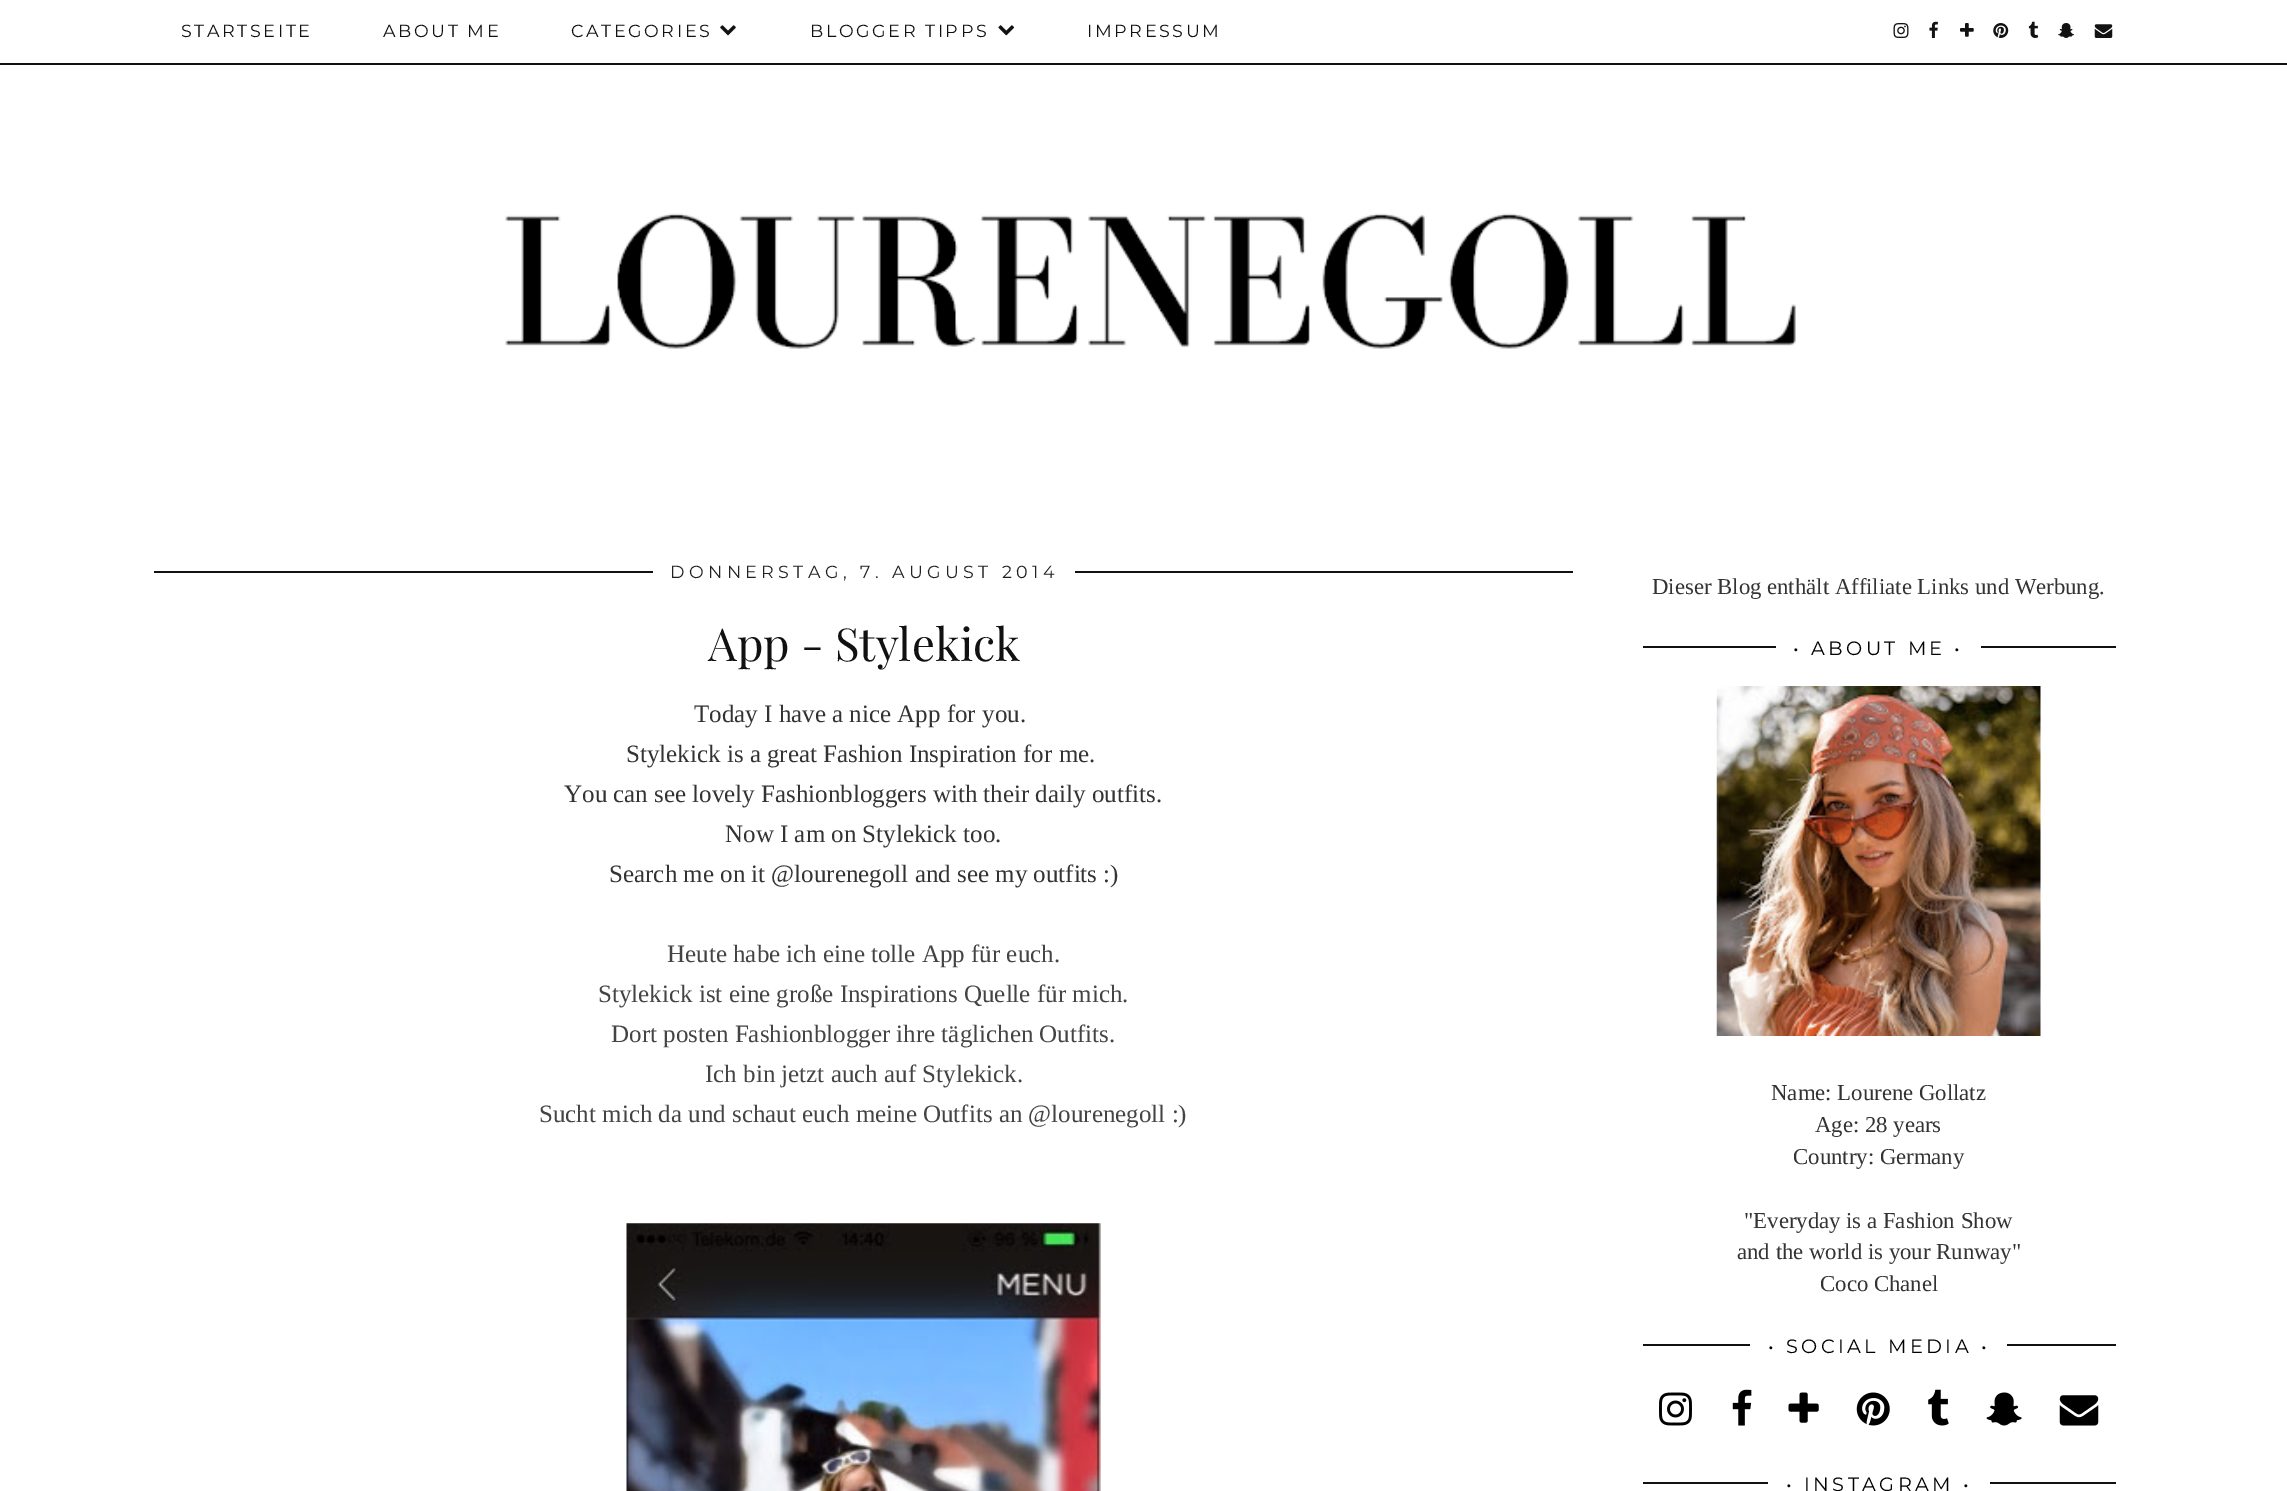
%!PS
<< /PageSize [2287 1491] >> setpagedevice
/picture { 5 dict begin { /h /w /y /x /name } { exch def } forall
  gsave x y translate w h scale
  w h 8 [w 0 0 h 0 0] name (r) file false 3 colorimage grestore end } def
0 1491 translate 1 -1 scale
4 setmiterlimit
1 setgray
0 0 2287 1491 rectfill
0.067 setgray
0 63 2287 2 rectfill
/Montserrat-Thin [17.5 0 0 -17.5 0 0] selectfont
181 37 moveto 2.6 0 (STARTSEITE) ashow
383 37 moveto 2.6 0 (ABOUT ME) ashow
571 37 moveto 2.6 0 (CATEGORIES) ashow
(img1.rgb) 720 25 16 11 picture
810 37 moveto 2.6 0 (BLOGGER TIPPS) ashow
(img2.rgb) 998 25 17 11 picture
1087 37 moveto 2.6 0 (IMPRESSUM) ashow
(img3.rgb) 1893 23 16 15 picture
(img4.rgb) 1929 21 9 17 picture
(img5.rgb) 1960 23 14 14 picture
(img6.rgb) 1993 23 16 15 picture
(img7.rgb) 2028 21 11 17 picture
(img8.rgb) 2058 23 17 15 picture
(img9.rgb) 2094 24 19 14 picture
(img10.rgb) 505 213 1291 136 picture
154 571 1419 2 rectfill
1 setgray
653 571 422 2 rectfill
0.133 setgray
670 578 moveto 4.4 0 (DONNERSTAG, 7. AUGUST 2014) ashow
/PlayfairDisplay-Regular [45.5 0 0 -45.5 0 0] selectfont
0.067 setgray
708 661 moveto (App - Stylekick) show
/LiberationSerif-Regular [25 0 0 -25 0 0] selectfont
0.2 setgray
694 722 moveto (Today I have a nice App for you.) show
626 762 moveto (Stylekick is a great Fashion Inspiration for me.) show
564 802 moveto (You can see lovely Fashionbloggers with their daily outfits.) show
725 842 moveto (Now I am on Stylekick too.) show
609 882 moveto (Search me on it @lourenegoll and see my outfits :\)) show
0.267 setgray
667 962 moveto (Heute habe ich eine tolle App für euch.) show
598 1002 moveto (Stylekick ist eine große Inspirations Quelle für mich.) show
611 1042 moveto (Dort posten Fashionblogger ihre täglichen Outfits.) show
705 1082 moveto (Ich bin jetzt auch auf Stylekick.) show
539 1122 moveto (Sucht mich da und schaut euch meine Outfits an @lourenegoll :\)) show
(img11.rgb) 626 1223 475 268 picture
/LiberationSerif-Regular [22.75 0 0 -22.75 0 0] selectfont
0.2 setgray
1652 594 moveto (Dieser Blog enthält Affiliate Links und Werbung.) show
0.067 setgray
1643 646 473 2 rectfill
1 setgray
1776 646 205 2 rectfill
/Montserrat-Thin [19.25 0 0 -19.25 0 0] selectfont
0 setgray
1793 655 moveto 3.5 0 (• ABOUT ME •) ashow
(img12.rgb) 1716 686 325 350 picture
/LiberationSerif-Regular [22.75 0 0 -22.75 0 0] selectfont
0.2 setgray
1771 1100 moveto (Name: Lourene Gollatz) show
1815 1132 moveto (Age: 28 years) show
1793 1164 moveto (Country: Germany) show
1744 1228 moveto ("Everyday is a Fashion Show) show
1737 1259 moveto (and the world is your Runway") show
1820 1291 moveto (Coco Chanel) show
0.067 setgray
1643 1344 473 2 rectfill
1 setgray
1750 1344 257 2 rectfill
/Montserrat-Thin [19.25 0 0 -19.25 0 0] selectfont
0 setgray
1768 1353 moveto 3.5 0 (• SOCIAL MEDIA •) ashow
(img13.rgb) 1659 1392 33 34 picture
(img14.rgb) 1732 1389 20 37 picture
(img15.rgb) 1788 1392 31 31 picture
(img16.rgb) 1856 1392 34 34 picture
(img17.rgb) 1928 1389 21 37 picture
(img18.rgb) 1986 1392 36 34 picture
(img19.rgb) 2059 1395 40 31 picture
0.067 setgray
1643 1482 473 2 rectfill
1 setgray
1768 1482 222 2 rectfill
0 setgray
1786 1491 moveto 3.5 0 (• INSTAGRAM •) ashow
showpage
